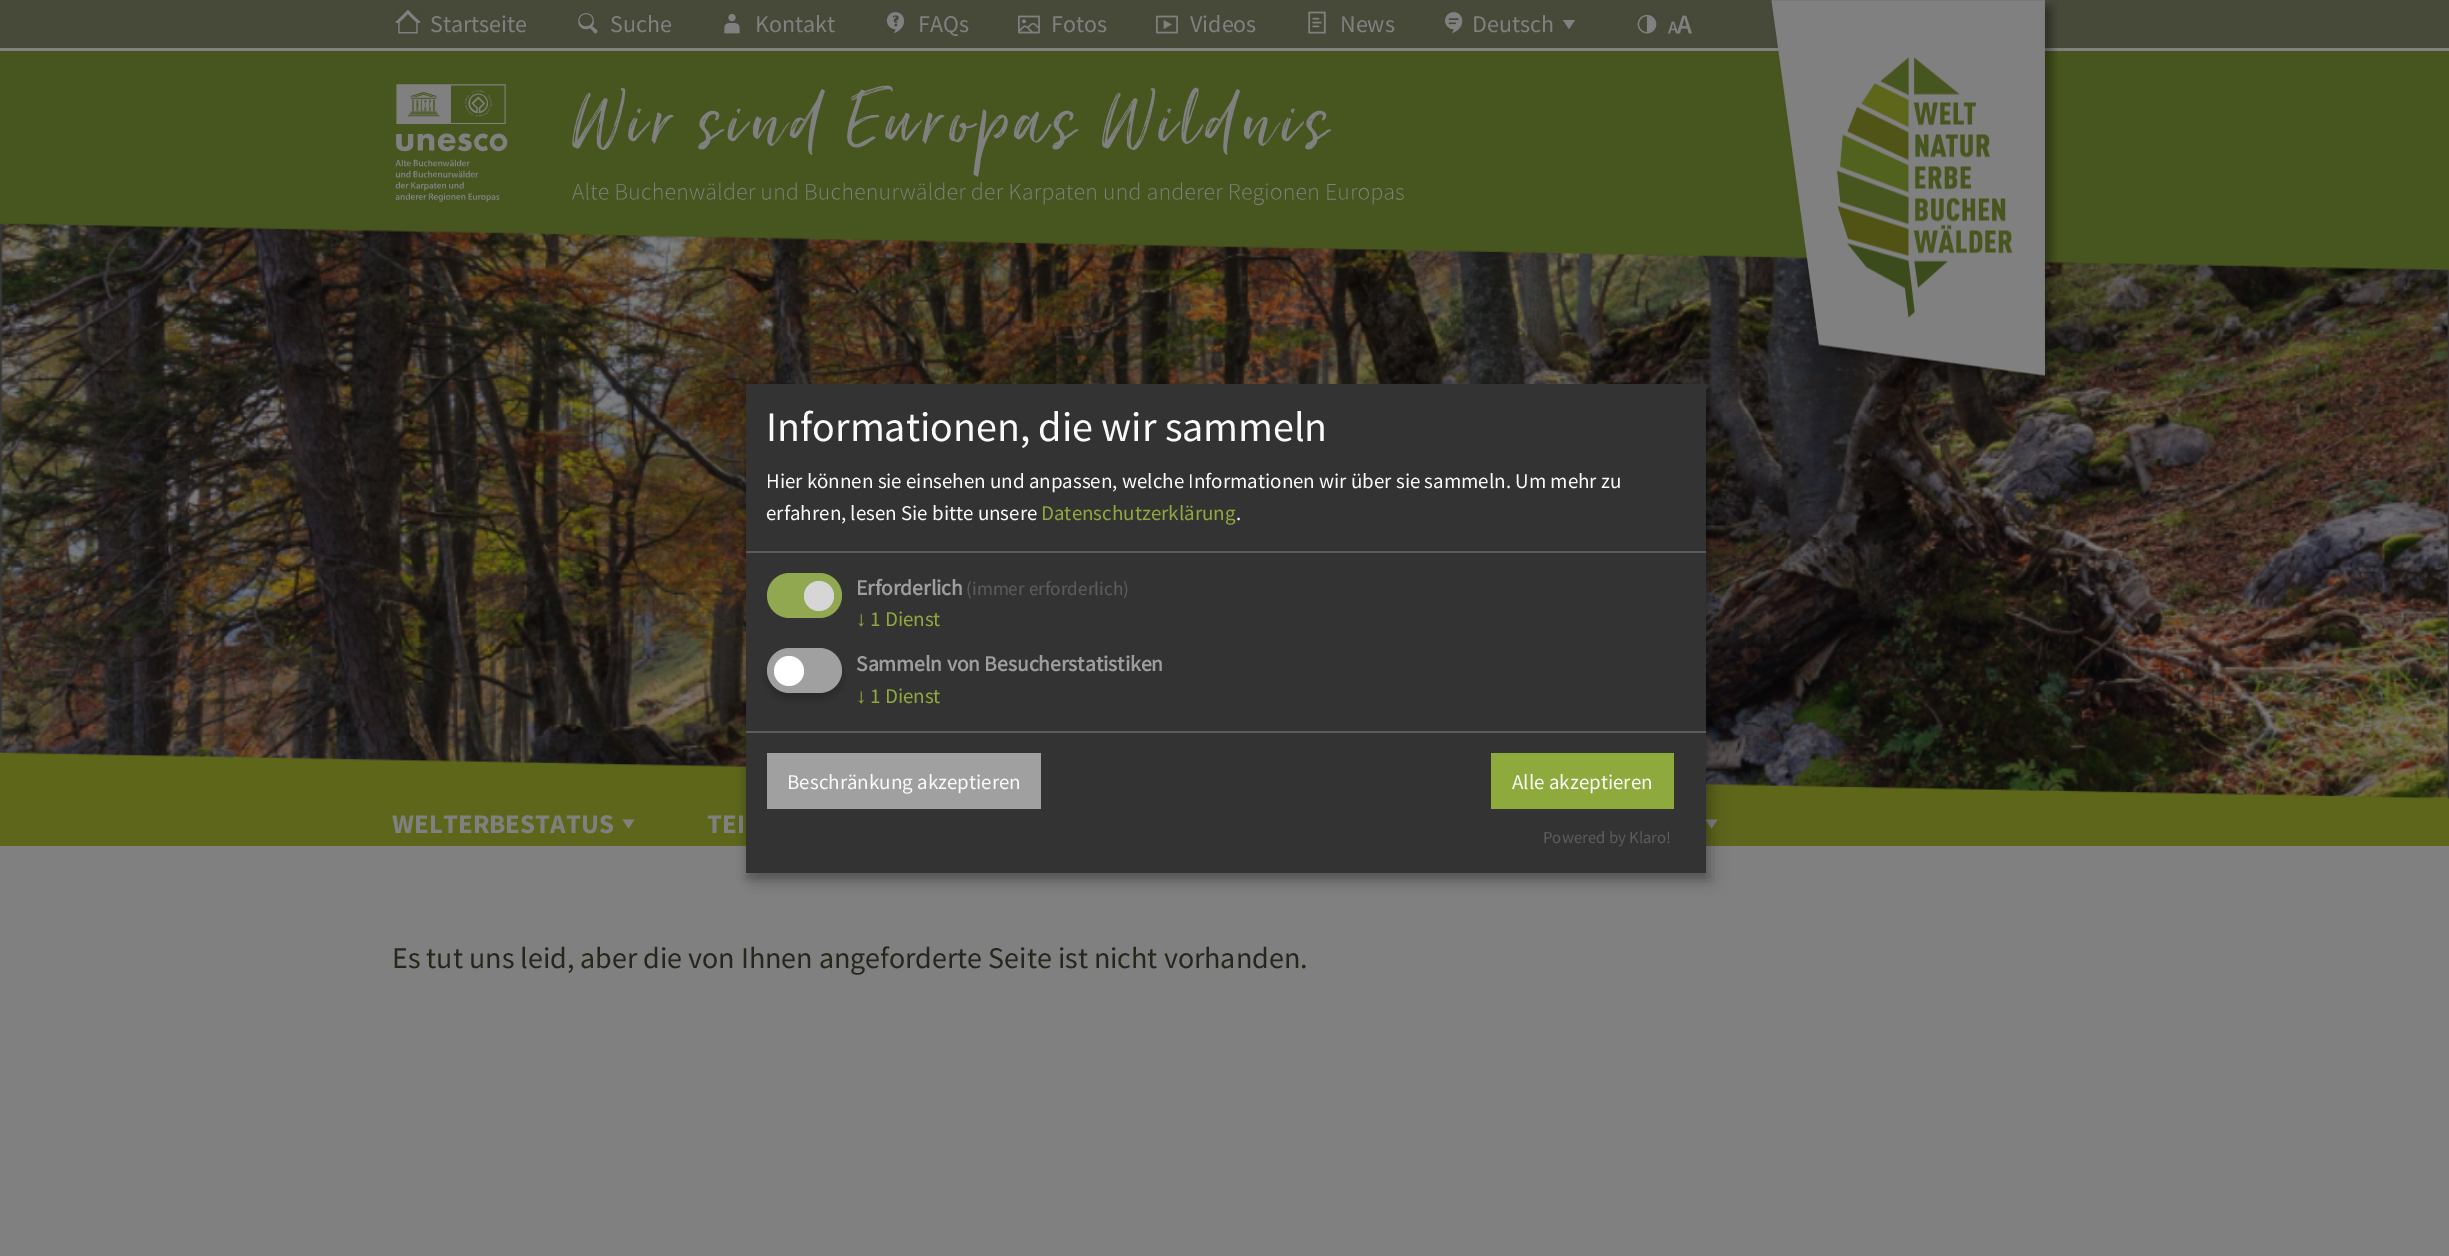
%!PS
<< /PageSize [2449 1256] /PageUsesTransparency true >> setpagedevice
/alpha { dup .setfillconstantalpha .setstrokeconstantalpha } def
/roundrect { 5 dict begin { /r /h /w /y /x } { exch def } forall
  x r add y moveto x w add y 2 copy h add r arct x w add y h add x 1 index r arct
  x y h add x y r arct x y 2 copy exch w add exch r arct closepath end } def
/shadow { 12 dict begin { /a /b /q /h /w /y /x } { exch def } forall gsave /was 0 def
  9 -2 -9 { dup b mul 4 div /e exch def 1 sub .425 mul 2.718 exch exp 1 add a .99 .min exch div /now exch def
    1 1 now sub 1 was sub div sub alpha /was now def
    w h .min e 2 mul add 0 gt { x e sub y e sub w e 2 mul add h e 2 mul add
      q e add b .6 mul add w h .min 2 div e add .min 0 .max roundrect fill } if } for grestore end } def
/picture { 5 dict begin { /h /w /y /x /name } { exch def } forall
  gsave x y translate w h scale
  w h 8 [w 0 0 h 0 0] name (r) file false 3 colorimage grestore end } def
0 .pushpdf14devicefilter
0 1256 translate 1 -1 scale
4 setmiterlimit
0.502 setgray
0 0 2449 1256 rectfill
0.278 0.286 0.224 setrgbcolor
0 0 2449 48 rectfill
(img1.rgb) 395 10 26 24 picture
/SourceSansPro-Regular [24 0 0 -24 0 0] selectfont
0.502 setgray
430 32 moveto (Startseite) show
(img2.rgb) 578 13 20 21 picture
610 32 moveto (Suche) show
(img3.rgb) 724 13 16 21 picture
755 32 moveto (Kontakt) show
(img4.rgb) 886 12 19 22 picture
918 32 moveto (FAQs) show
(img5.rgb) 1018 15 22 19 picture
1051 32 moveto (Fotos) show
(img6.rgb) 1156 15 22 19 picture
1190 32 moveto (Videos) show
(img7.rgb) 1308 11 18 23 picture
1340 32 moveto (News) show
(img8.rgb) 1445 12 18 22 picture
1472 32 moveto (Deutsch) show
newpath 1575 20 moveto 1569 29 lineto 1563 20 lineto closepath fill
(img9.rgb) 1637 14 20 20 picture
(img10.rgb) 1668 15 24 19 picture
(img12.rgb) 0 222 2449 577 picture
(img13.rgb) 0 51 2449 750 picture
(img11.rgb) 1771 0 287 386 picture
(img14.rgb) 395 84 1009 121 picture
0.365 0.4 0.106 setrgbcolor
0 801 2449 45 rectfill
/SourceSansPro-Bold [27 0 0 -27 0 0] selectfont
0.502 setgray
392 833 moveto (WELTERBESTATUS) show
newpath 634.5 819.5 moveto 628.5 828.5 lineto 622.5 819.5 lineto closepath fill
707 833 moveto (TEI) show
newpath 1717.5 819.5 moveto 1711.5 828.5 lineto 1705.5 819.5 lineto closepath fill
0 setgray
753 392 960 489 0 7.5 0.19 shadow
746 390 960 489 0 4.5 0.2 shadow
0.2 setgray
746 384 960 489 rectfill
0.361 setgray
746 551 960 2 rectfill
/SourceSansPro-Regular [42 0 0 -42 0 0] selectfont
0.98 setgray
766 441 moveto (Informationen, die wir sammeln) show
/SourceSansPro-Regular [21 0 0 -21 0 0] selectfont
766 488 moveto (Hier können sie einsehen und anpassen, welche Informationen wir über sie sammeln. Um mehr zu) show
766 520 moveto (erfahren, lesen Sie bitte unsere) show
0.557 0.667 0.235 setrgbcolor
1041 520 moveto (Datenschutzerklärung) show
0.98 setgray
1236 520 moveto (.) show
0.569 0.659 0.318 setrgbcolor
767 573 75 45 22.5 roundrect fill
0.839 setgray
newpath 819 596 15 0 360 arc closepath fill
/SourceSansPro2-Bold [21.6 0 0 -21.6 0 0] selectfont
0.62 setgray
856 595 moveto (Erforderlich) show
/SourceSansPro-Regular [19.25 0 0 -19.25 0 0] selectfont
0.361 setgray
966 595 moveto (\(immer erforderlich\)) show
/LiberationSerif-Regular [21 0 0 -21 0 0] selectfont
0.557 0.667 0.235 setrgbcolor
856 626 moveto (↓) show
/SourceSansPro-Regular [21 0 0 -21 0 0] selectfont
870 626 moveto (1 Dienst) show
0 setgray
767 654 75 45 22.5 4.5 0.2 shadow
0.627 setgray
767 648 75 45 22.5 roundrect fill
1 setgray
newpath 789 671 15 0 360 arc closepath fill
/SourceSansPro2-Bold [21.6 0 0 -21.6 0 0] selectfont
0.62 setgray
856 671 moveto (Sammeln von Besucherstatistiken) show
/LiberationSerif-Regular [21 0 0 -21 0 0] selectfont
0.557 0.667 0.235 setrgbcolor
856 703 moveto (↓) show
/SourceSansPro-Regular [21 0 0 -21 0 0] selectfont
870 703 moveto (1 Dienst) show
0.361 setgray
746 731 960 2 rectfill
0.627 setgray
767 753 274 56 rectfill
0.98 setgray
787 789 moveto (Beschränkung akzeptieren) show
0.557 0.667 0.235 setrgbcolor
1491 753 183 56 rectfill
0.98 setgray
1512 789 moveto (Alle akzeptieren) show
/SourceSansPro-Regular [16.75 0 0 -16.75 0 0] selectfont
0.361 setgray
1543 843 moveto (Powered by Klaro!) show
/SourceSansPro-Regular [30 0 0 -30 0 0] selectfont
0.149 0.153 0.106 setrgbcolor
392 968 moveto (Es tut uns leid, aber die von Ihnen angeforderte Seite ist nicht vorhanden.) show
.poppdf14devicefilter showpage
